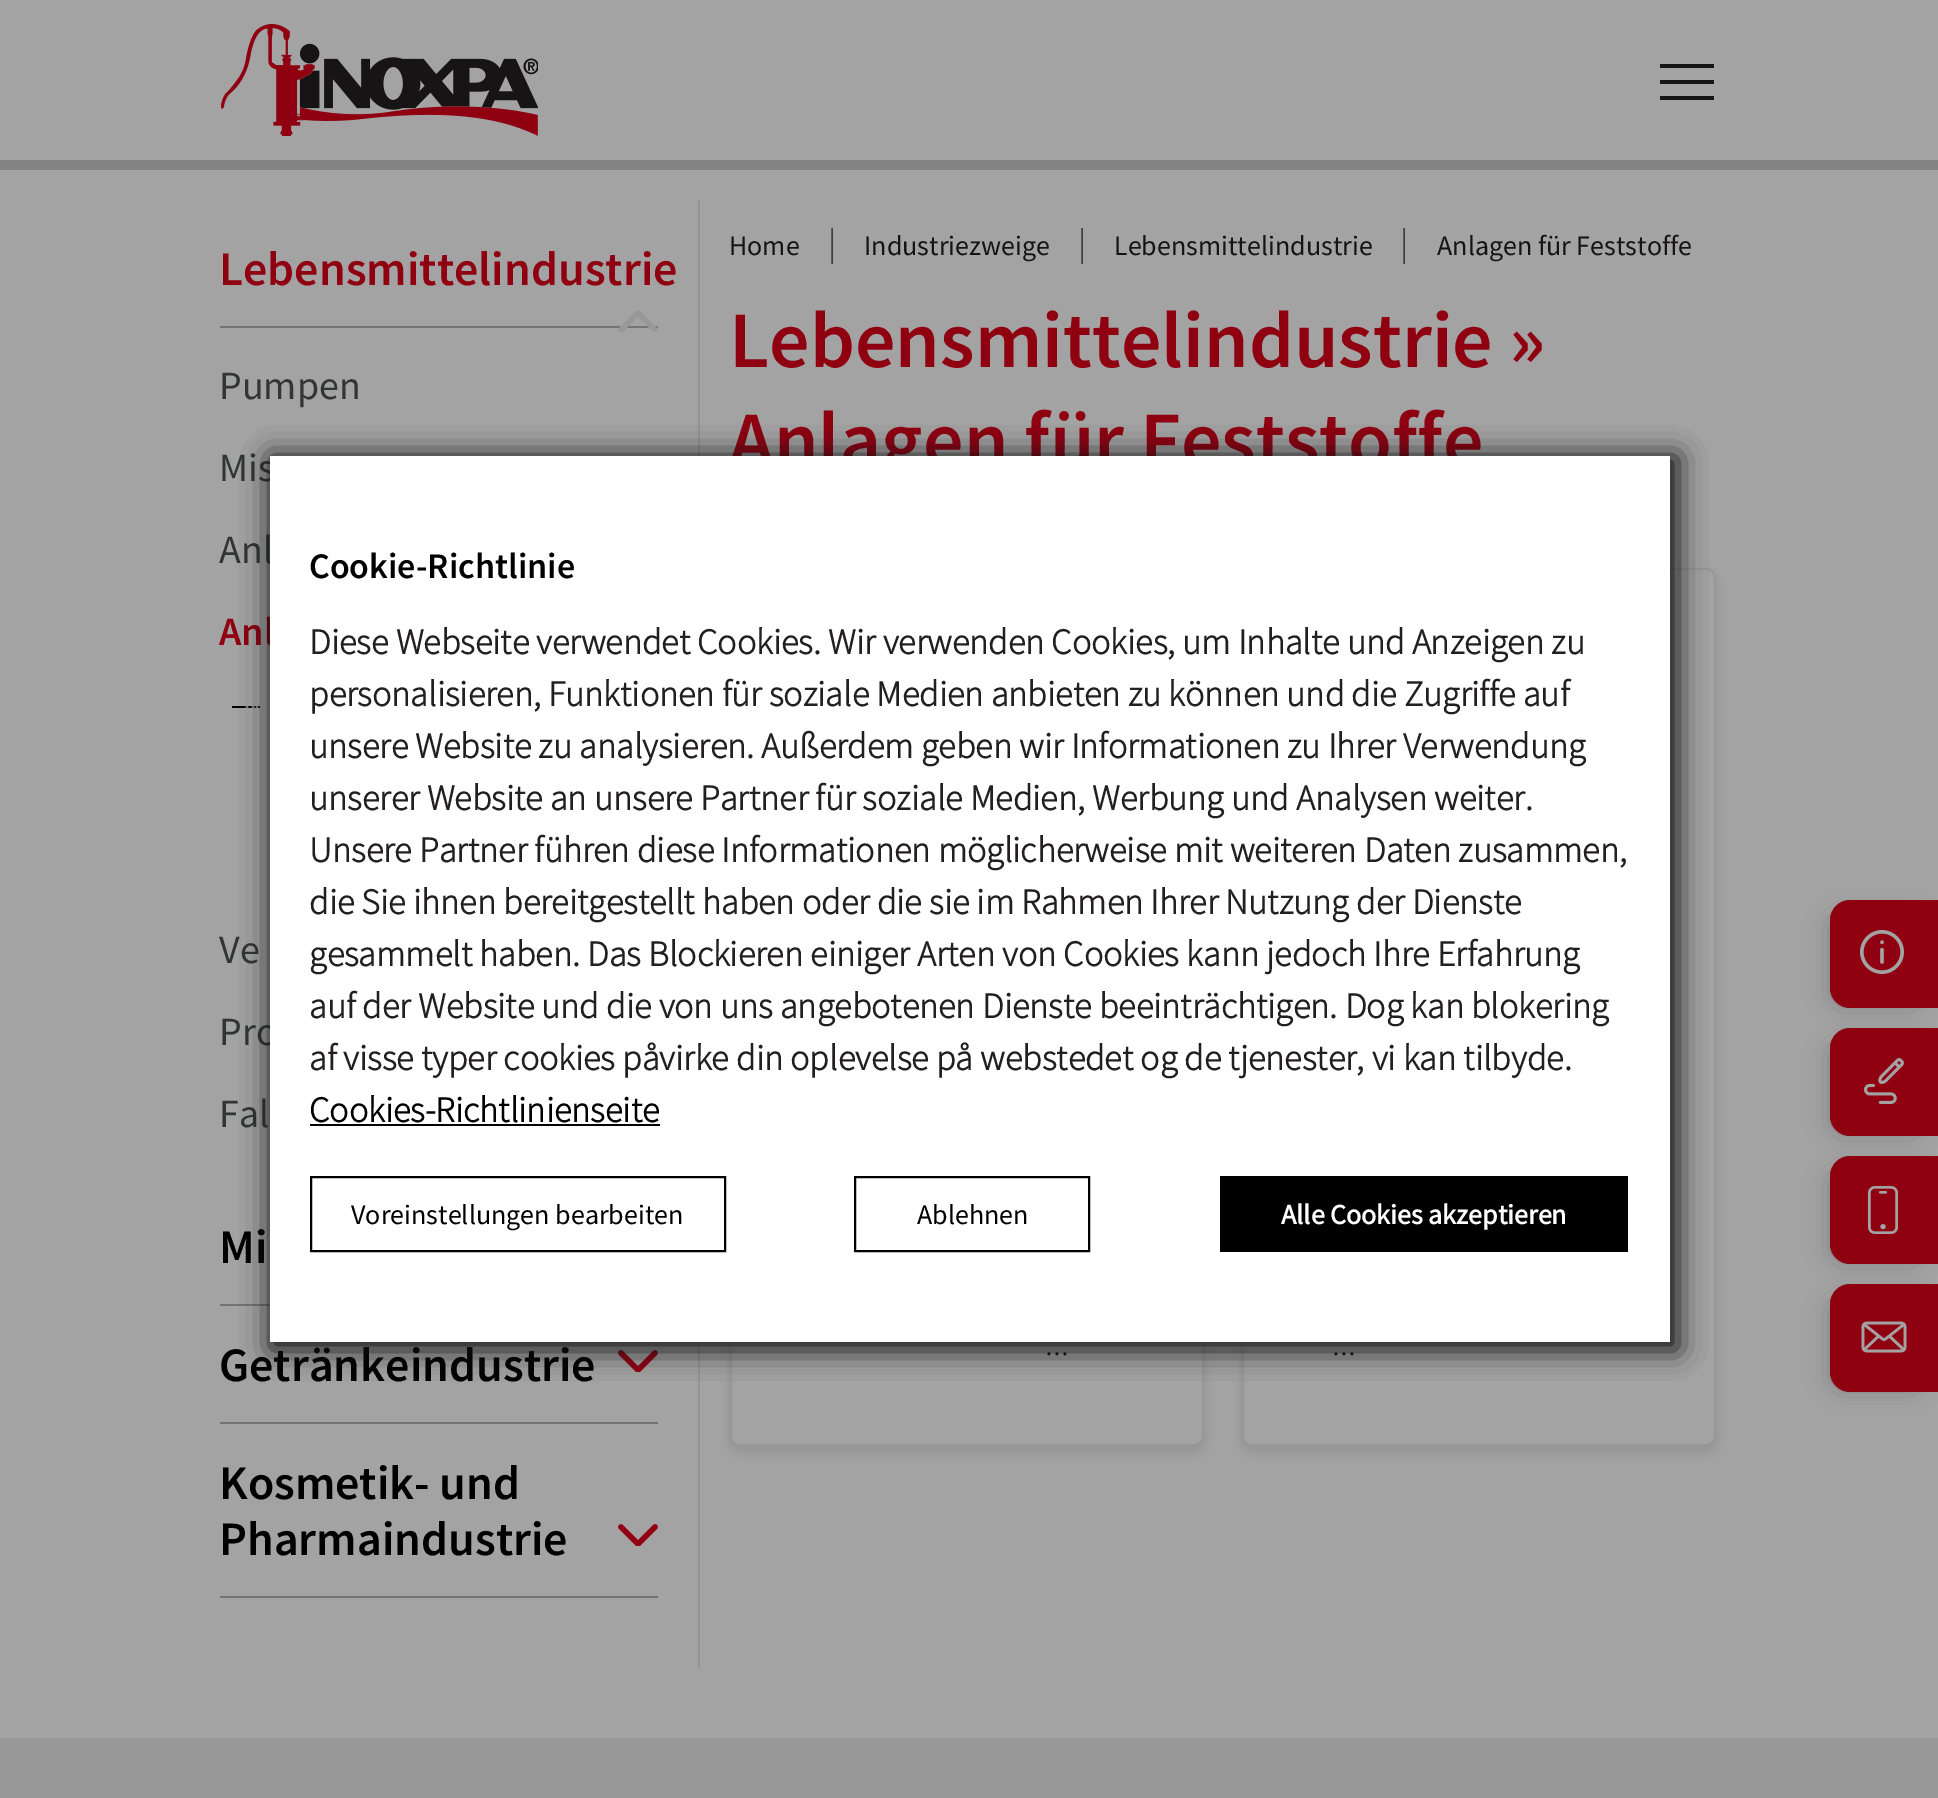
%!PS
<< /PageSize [1938 1798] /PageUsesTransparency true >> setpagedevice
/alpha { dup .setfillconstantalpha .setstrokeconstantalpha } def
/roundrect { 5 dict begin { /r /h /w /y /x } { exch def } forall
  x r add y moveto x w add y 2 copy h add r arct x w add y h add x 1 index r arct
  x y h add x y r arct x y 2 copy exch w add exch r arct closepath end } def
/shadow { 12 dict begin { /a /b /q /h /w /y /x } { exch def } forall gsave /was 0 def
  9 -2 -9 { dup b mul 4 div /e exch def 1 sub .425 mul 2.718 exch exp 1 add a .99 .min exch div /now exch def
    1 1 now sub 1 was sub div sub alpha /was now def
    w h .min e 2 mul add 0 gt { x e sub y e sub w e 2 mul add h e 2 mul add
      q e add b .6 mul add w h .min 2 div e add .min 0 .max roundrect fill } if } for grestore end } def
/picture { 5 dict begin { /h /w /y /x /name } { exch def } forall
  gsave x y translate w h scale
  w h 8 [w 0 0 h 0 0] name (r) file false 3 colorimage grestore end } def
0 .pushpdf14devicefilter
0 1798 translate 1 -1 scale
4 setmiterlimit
0.639 setgray
0 0 1938 1798 rectfill
0.514 setgray
0 160 1938 10 rectfill
(img1.rgb) 221 24 317 112 picture
0.09 0.078 0.082 setrgbcolor
1660 64 54 4 rectfill
1660 80 54 4 rectfill
1660 96 54 4 rectfill
0.58 setgray
698 200 2 1468 rectfill
0.463 0.455 0.435 setrgbcolor
220 326 438 2 rectfill
/SourceSansPro-SemiBold [48 0 0 -48 0 0] selectfont
0.561 0 0.067 setrgbcolor
219 285 moveto (Lebensmittelindustrie) show
(img2.rgb) 618 310 40 22 picture
/SourceSansPro-Regular [40 0 0 -40 0 0] selectfont
0.192 0.212 0.204 setrgbcolor
219 399 moveto (Pumpen) show
219 481 moveto (Mis) show
219 563 moveto (Anl) show
/SourceSansPro-SemiBold [40 0 0 -40 0 0] selectfont
0.561 0 0.067 setrgbcolor
219 645 moveto (Anl) show
(img3.rgb) 232 706 28 2 picture
/SourceSansPro-Regular [40 0 0 -40 0 0] selectfont
0.192 0.212 0.204 setrgbcolor
219 963 moveto (Ve) show
219 1045 moveto (Pro) show
219 1127 moveto (Fal) show
0.463 0.455 0.435 setrgbcolor
220 1304 50 2 rectfill
/SourceSansPro-SemiBold [48 0 0 -48 0 0] selectfont
0 setgray
219 1263 moveto (Mi) show
0.463 0.455 0.435 setrgbcolor
220 1422 438 2 rectfill
0 setgray
219 1381 moveto (Getränkeindustrie) show
(img4.rgb) 618 1350 40 22 picture
0.463 0.455 0.435 setrgbcolor
220 1596 438 2 rectfill
0 setgray
219 1499 moveto (Kosmetik- und) show
219 1555 moveto (Pharmaindustrie) show
(img4.rgb) 618 1524 40 22 picture
/SourceSansPro-Regular [28 0 0 -28 0 0] selectfont
0.086 0.078 0.078 setrgbcolor
729 255 moveto (Home) show
/SourceSansPro-Light [36 0 0 -36 0 0] selectfont
0.102 setgray
828 255 moveto (|) show
/SourceSansPro-Regular [28 0 0 -28 0 0] selectfont
0.086 0.078 0.078 setrgbcolor
864 255 moveto (Industriezweige) show
/SourceSansPro-Light [36 0 0 -36 0 0] selectfont
0.102 setgray
1078 255 moveto (|) show
/SourceSansPro-Regular [28 0 0 -28 0 0] selectfont
0.086 0.078 0.078 setrgbcolor
1114 255 moveto (Lebensmittelindustrie) show
/SourceSansPro-Light [36 0 0 -36 0 0] selectfont
0.102 setgray
1400 255 moveto (|) show
/SourceSansPro-Regular [28 0 0 -28 0 0] selectfont
0.086 0.078 0.078 setrgbcolor
1437 255 moveto (Anlagen für Feststoffe) show
/SourceSansPro-SemiBold [80 0 0 -80 0 0] selectfont
0.561 0 0.067 setrgbcolor
729 367 moveto (Lebensmittelindustrie ») show
729 467 moveto (Anlagen für Feststoffe) show
gsave
newpath 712 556 moveto 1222 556 lineto 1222 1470 lineto 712 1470 lineto closepath 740 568 moveto 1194 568 lineto 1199.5 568 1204 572.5 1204 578 curveto 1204 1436 lineto 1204 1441.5 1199.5 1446 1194 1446 curveto 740 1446 lineto 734.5 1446 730 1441.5 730 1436 curveto 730 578 lineto 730 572.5 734.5 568 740 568 curveto closepath eoclip newpath
0.588 setgray
728 572 478 882 12 5 1 shadow
grestore
0.596 setgray
2 setlinewidth
731 569 472 876 9 roundrect stroke
/SourceSansPro-Light [36 0 0 -36 0 0] selectfont
0.086 0.078 0.078 setrgbcolor
1045 1355 moveto (...) show
gsave
newpath 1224 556 moveto 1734 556 lineto 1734 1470 lineto 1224 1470 lineto closepath 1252 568 moveto 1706 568 lineto 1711.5 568 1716 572.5 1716 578 curveto 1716 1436 lineto 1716 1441.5 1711.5 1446 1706 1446 curveto 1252 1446 lineto 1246.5 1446 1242 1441.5 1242 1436 curveto 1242 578 lineto 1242 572.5 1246.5 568 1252 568 curveto closepath eoclip newpath
0.588 setgray
1240 572 478 882 12 5 1 shadow
grestore
0.596 setgray
1243 569 472 876 9 roundrect stroke
0.086 0.078 0.078 setrgbcolor
1332 1355 moveto (...) show
0 setgray
1830 914 92 92 12 12 0.2 shadow
0.561 0 0.067 setrgbcolor
newpath 1850 900 moveto 1938 900 lineto 1938 1008 lineto 1850 1008 lineto 1839 1008 1830 999 1830 988 curveto 1830 920 lineto 1830 909 1839 900 1850 900 curveto closepath fill
(img5.rgb) 1860 930 44 44 picture
0 setgray
1830 1042 92 92 12 12 0.2 shadow
0.561 0 0.067 setrgbcolor
newpath 1850 1028 moveto 1938 1028 lineto 1938 1136 lineto 1850 1136 lineto 1839 1136 1830 1127 1830 1116 curveto 1830 1048 lineto 1830 1037 1839 1028 1850 1028 curveto closepath fill
(img6.rgb) 1864 1058 40 46 picture
0 setgray
1830 1170 92 92 12 12 0.2 shadow
0.561 0 0.067 setrgbcolor
newpath 1850 1156 moveto 1938 1156 lineto 1938 1264 lineto 1850 1264 lineto 1839 1264 1830 1255 1830 1244 curveto 1830 1176 lineto 1830 1165 1839 1156 1850 1156 curveto closepath fill
(img7.rgb) 1868 1186 30 48 picture
0 setgray
1830 1298 92 92 12 12 0.2 shadow
0.561 0 0.067 setrgbcolor
newpath 1850 1284 moveto 1938 1284 lineto 1938 1392 lineto 1850 1392 lineto 1839 1392 1830 1383 1830 1372 curveto 1830 1304 lineto 1830 1293 1839 1284 1850 1284 curveto closepath fill
(img8.rgb) 1861 1321 46 32 picture
0.596 setgray
0 1738 1938 60 rectfill
0.071 setgray
270 456 1408 894 0 14 1 shadow
1 setgray
270 456 1400 886 rectfill
/SourceSansPro-SemiBold [36 0 0 -36 0 0] selectfont
0 setgray
309 578 moveto (Cookie-Richtlinie) show
/SourceSansPro-Bold [36 0 0 -36 0 0] selectfont
0.137 0.122 0.125 setrgbcolor
309 654 moveto (Diese Webseite verwendet Cookies. Wir verwenden Cookies, um Inhalte und Anzeigen zu) show
309 706 moveto (personalisieren, Funktionen für soziale Medien anbieten zu können und die Zugriffe auf) show
309 758 moveto (unsere Website zu analysieren. Außerdem geben wir Informationen zu Ihrer Verwendung) show
309 810 moveto (unserer Website an unsere Partner für soziale Medien, Werbung und Analysen weiter.) show
309 862 moveto (Unsere Partner führen diese Informationen möglicherweise mit weiteren Daten zusammen,) show
309 914 moveto (die Sie ihnen bereitgestellt haben oder die sie im Rahmen Ihrer Nutzung der Dienste) show
309 966 moveto (gesammelt haben. Das Blockieren einiger Arten von Cookies kann jedoch Ihre Erfahrung) show
309 1018 moveto (auf der Website und die von uns angebotenen Dienste beeinträchtigen. Dog kan blokering) show
309 1070 moveto (af visse typer cookies påvirke din oplevelse på webstedet og de tjenester, vi kan tilbyde.) show
0 setgray
309 1122 moveto (Cookies-Richtlinienseite) show
310 1124 350 2 rectfill
311 1177 414 74 rectstroke
/SourceSansPro-Regular [28 0 0 -28 0 0] selectfont
351 1224 moveto (Voreinstellungen bearbeiten) show
855 1177 234 74 rectstroke
917 1224 moveto (Ablehnen) show
1220 1176 408 76 rectfill
/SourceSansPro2-Bold [28 0 0 -28 0 0] selectfont
1 setgray
1281 1224 moveto (Alle Cookies akzeptieren) show
.poppdf14devicefilter showpage
